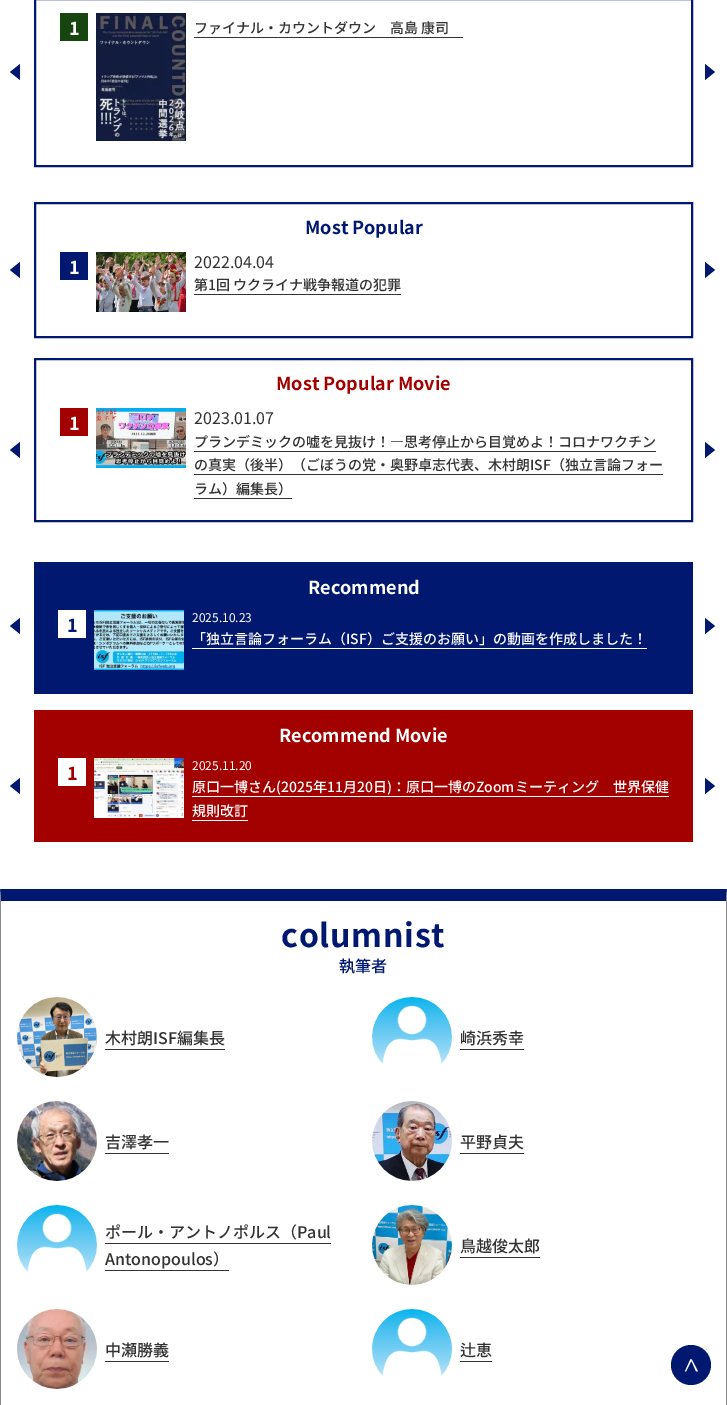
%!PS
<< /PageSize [727 1405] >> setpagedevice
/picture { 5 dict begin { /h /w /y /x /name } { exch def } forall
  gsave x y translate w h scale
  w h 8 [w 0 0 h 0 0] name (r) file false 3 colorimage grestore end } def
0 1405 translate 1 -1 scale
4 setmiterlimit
1 setgray
0 0 727 1405 rectfill
0 0.094 0.439 setrgbcolor
2 setlinewidth
35 -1 657 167 rectstroke
0.09 0.271 0.063 setrgbcolor
60 13 28 28 rectfill
/NotoSansJP-Bold [18 0 0 -18 0 0] selectfont
1 setgray
69 35 moveto (1) show
(img1.rgb) 96 13 90 128 picture
/NotoSansJP-Medium [14 0 0 -14 0 0] selectfont
0.2 setgray
194 33 moveto (ファイナル・カウントダウン　高島 康司) show
194 37 269 1 rectfill
0 0.094 0.439 setrgbcolor
newpath 20 64 moveto 20 80 lineto 10 72 lineto closepath fill
newpath 705 80 moveto 705 64 lineto 715 72 lineto closepath fill
35 203 657 134 rectstroke
/NotoSansJP-Bold [18 0 0 -18 0 0] selectfont
305 234 moveto (Most Popular) show
newpath 20 262 moveto 20 278 lineto 10 270 lineto closepath fill
60 252 28 28 rectfill
1 setgray
69 274 moveto (1) show
(img2.rgb) 96 252 90 60 picture
/NotoSansJP-Regular [16 0 0 -16 0 0] selectfont
0.2 setgray
194 268 moveto (2022.04.04) show
/NotoSansJP-Medium [14 0 0 -14 0 0] selectfont
194 290 moveto (第1回 ウクライナ戦争報道の犯罪) show
194 294 207 1 rectfill
0 0.094 0.439 setrgbcolor
newpath 705 278 moveto 705 262 lineto 715 270 lineto closepath fill
35 359 657 162 rectstroke
/NotoSansJP-Bold [18 0 0 -18 0 0] selectfont
0.639 0.004 0 setrgbcolor
276 390 moveto (Most Popular Movie) show
0 0.094 0.439 setrgbcolor
newpath 20 442 moveto 20 458 lineto 10 450 lineto closepath fill
0.639 0.004 0 setrgbcolor
60 408 28 28 rectfill
1 setgray
69 430 moveto (1) show
(img3.rgb) 96 408 90 60 picture
/NotoSansJP-Regular [16 0 0 -16 0 0] selectfont
0.2 setgray
194 424 moveto (2023.01.07) show
/NotoSansJP-Medium [14 0 0 -14 0 0] selectfont
194 447 moveto (プランデミックの嘘を見抜け！―思考停止から目覚めよ！コロナワクチン) show
194 451 462 1 rectfill
194 470 moveto (の真実（後半）（ごぼうの党・奥野卓志代表、木村朗ISF（独立言論フォー) show
194 474 469 1 rectfill
194 494 moveto (ラム）編集長）) show
194 498 98 1 rectfill
0 0.094 0.439 setrgbcolor
newpath 705 458 moveto 705 442 lineto 715 450 lineto closepath fill
34 562 659 132 rectfill
/NotoSansJP-Bold [18 0 0 -18 0 0] selectfont
1 setgray
308 594 moveto (Recommend) show
0 0.094 0.439 setrgbcolor
newpath 20 618 moveto 20 634 lineto 10 626 lineto closepath fill
1 setgray
58 610 28 28 rectfill
0 0.094 0.439 setrgbcolor
67 632 moveto (1) show
(img4.rgb) 94 610 90 60 picture
/NotoSansJP-Regular [12 0 0 -12 0 0] selectfont
1 setgray
192 622 moveto (2025.10.23) show
/NotoSansJP-Medium [14 0 0 -14 0 0] selectfont
192 644 moveto (「独立言論フォーラム（ISF）ご支援のお願い」の動画を作成しました！) show
192 648 455 1 rectfill
0 0.094 0.439 setrgbcolor
newpath 705 634 moveto 705 618 lineto 715 626 lineto closepath fill
0.639 0.004 0 setrgbcolor
34 710 659 132 rectfill
/NotoSansJP-Bold [18 0 0 -18 0 0] selectfont
1 setgray
279 742 moveto (Recommend Movie) show
0 0.094 0.439 setrgbcolor
newpath 20 778 moveto 20 794 lineto 10 786 lineto closepath fill
1 setgray
58 758 28 28 rectfill
0.639 0.004 0 setrgbcolor
67 780 moveto (1) show
(img5.rgb) 94 758 90 60 picture
/NotoSansJP-Regular [12 0 0 -12 0 0] selectfont
1 setgray
192 770 moveto (2025.11.20) show
/NotoSansJP-Medium [14 0 0 -14 0 0] selectfont
192 792 moveto (原口一博さん\(2025年11月20日\)：原口一博のZoomミーティング　世界保健) show
192 796 477 1 rectfill
192 816 moveto (規則改訂) show
192 820 56 1 rectfill
0 0.094 0.439 setrgbcolor
newpath 705 794 moveto 705 778 lineto 715 786 lineto closepath fill
newpath 0 889 moveto 727 889 lineto 726 901 lineto 1 901 lineto closepath fill
0.537 setgray
newpath 727 889 moveto 727 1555 lineto 726 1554 lineto 726 901 lineto closepath fill
newpath 0 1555 moveto 0 889 lineto 1 901 lineto 1 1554 lineto closepath fill
/NotoSansJP-Bold [32 0 0 -32 0 0] selectfont
0 0.094 0.439 setrgbcolor
281 947 moveto 0.75 0 (columnist) ashow
/NotoSansJP-Medium [16 0 0 -16 0 0] selectfont
339 972 moveto (執筆者) show
(img6.rgb) 17 997 80 80 picture
0.2 setgray
105 1044 moveto (木村朗ISF編集長) show
105 1049 120 1 rectfill
(img7.rgb) 372 997 80 67 picture
460 1044 moveto (崎浜秀幸) show
460 1049 64 1 rectfill
(img8.rgb) 17 1101 80 80 picture
105 1148 moveto (吉澤孝一) show
105 1153 64 1 rectfill
(img9.rgb) 372 1101 80 80 picture
460 1148 moveto (平野貞夫) show
460 1153 64 1 rectfill
(img7.rgb) 17 1205 80 67 picture
105 1238 moveto (ポール・アントノポルス（Paul) show
105 1243 226 1 rectfill
105 1265 moveto (Antonopoulos）) show
105 1270 124 1 rectfill
(img10.rgb) 372 1205 80 80 picture
460 1252 moveto (鳥越俊太郎) show
460 1257 80 1 rectfill
(img11.rgb) 17 1309 80 80 picture
105 1356 moveto (中瀬勝義) show
105 1361 64 1 rectfill
(img12.rgb) 372 1309 80 67 picture
460 1356 moveto (辻恵) show
460 1361 32 1 rectfill
0 0.094 0.439 setrgbcolor
newpath 691 1365 20 0 360 arc closepath fill
(img13.rgb) 684 1359 14 13 picture
showpage
